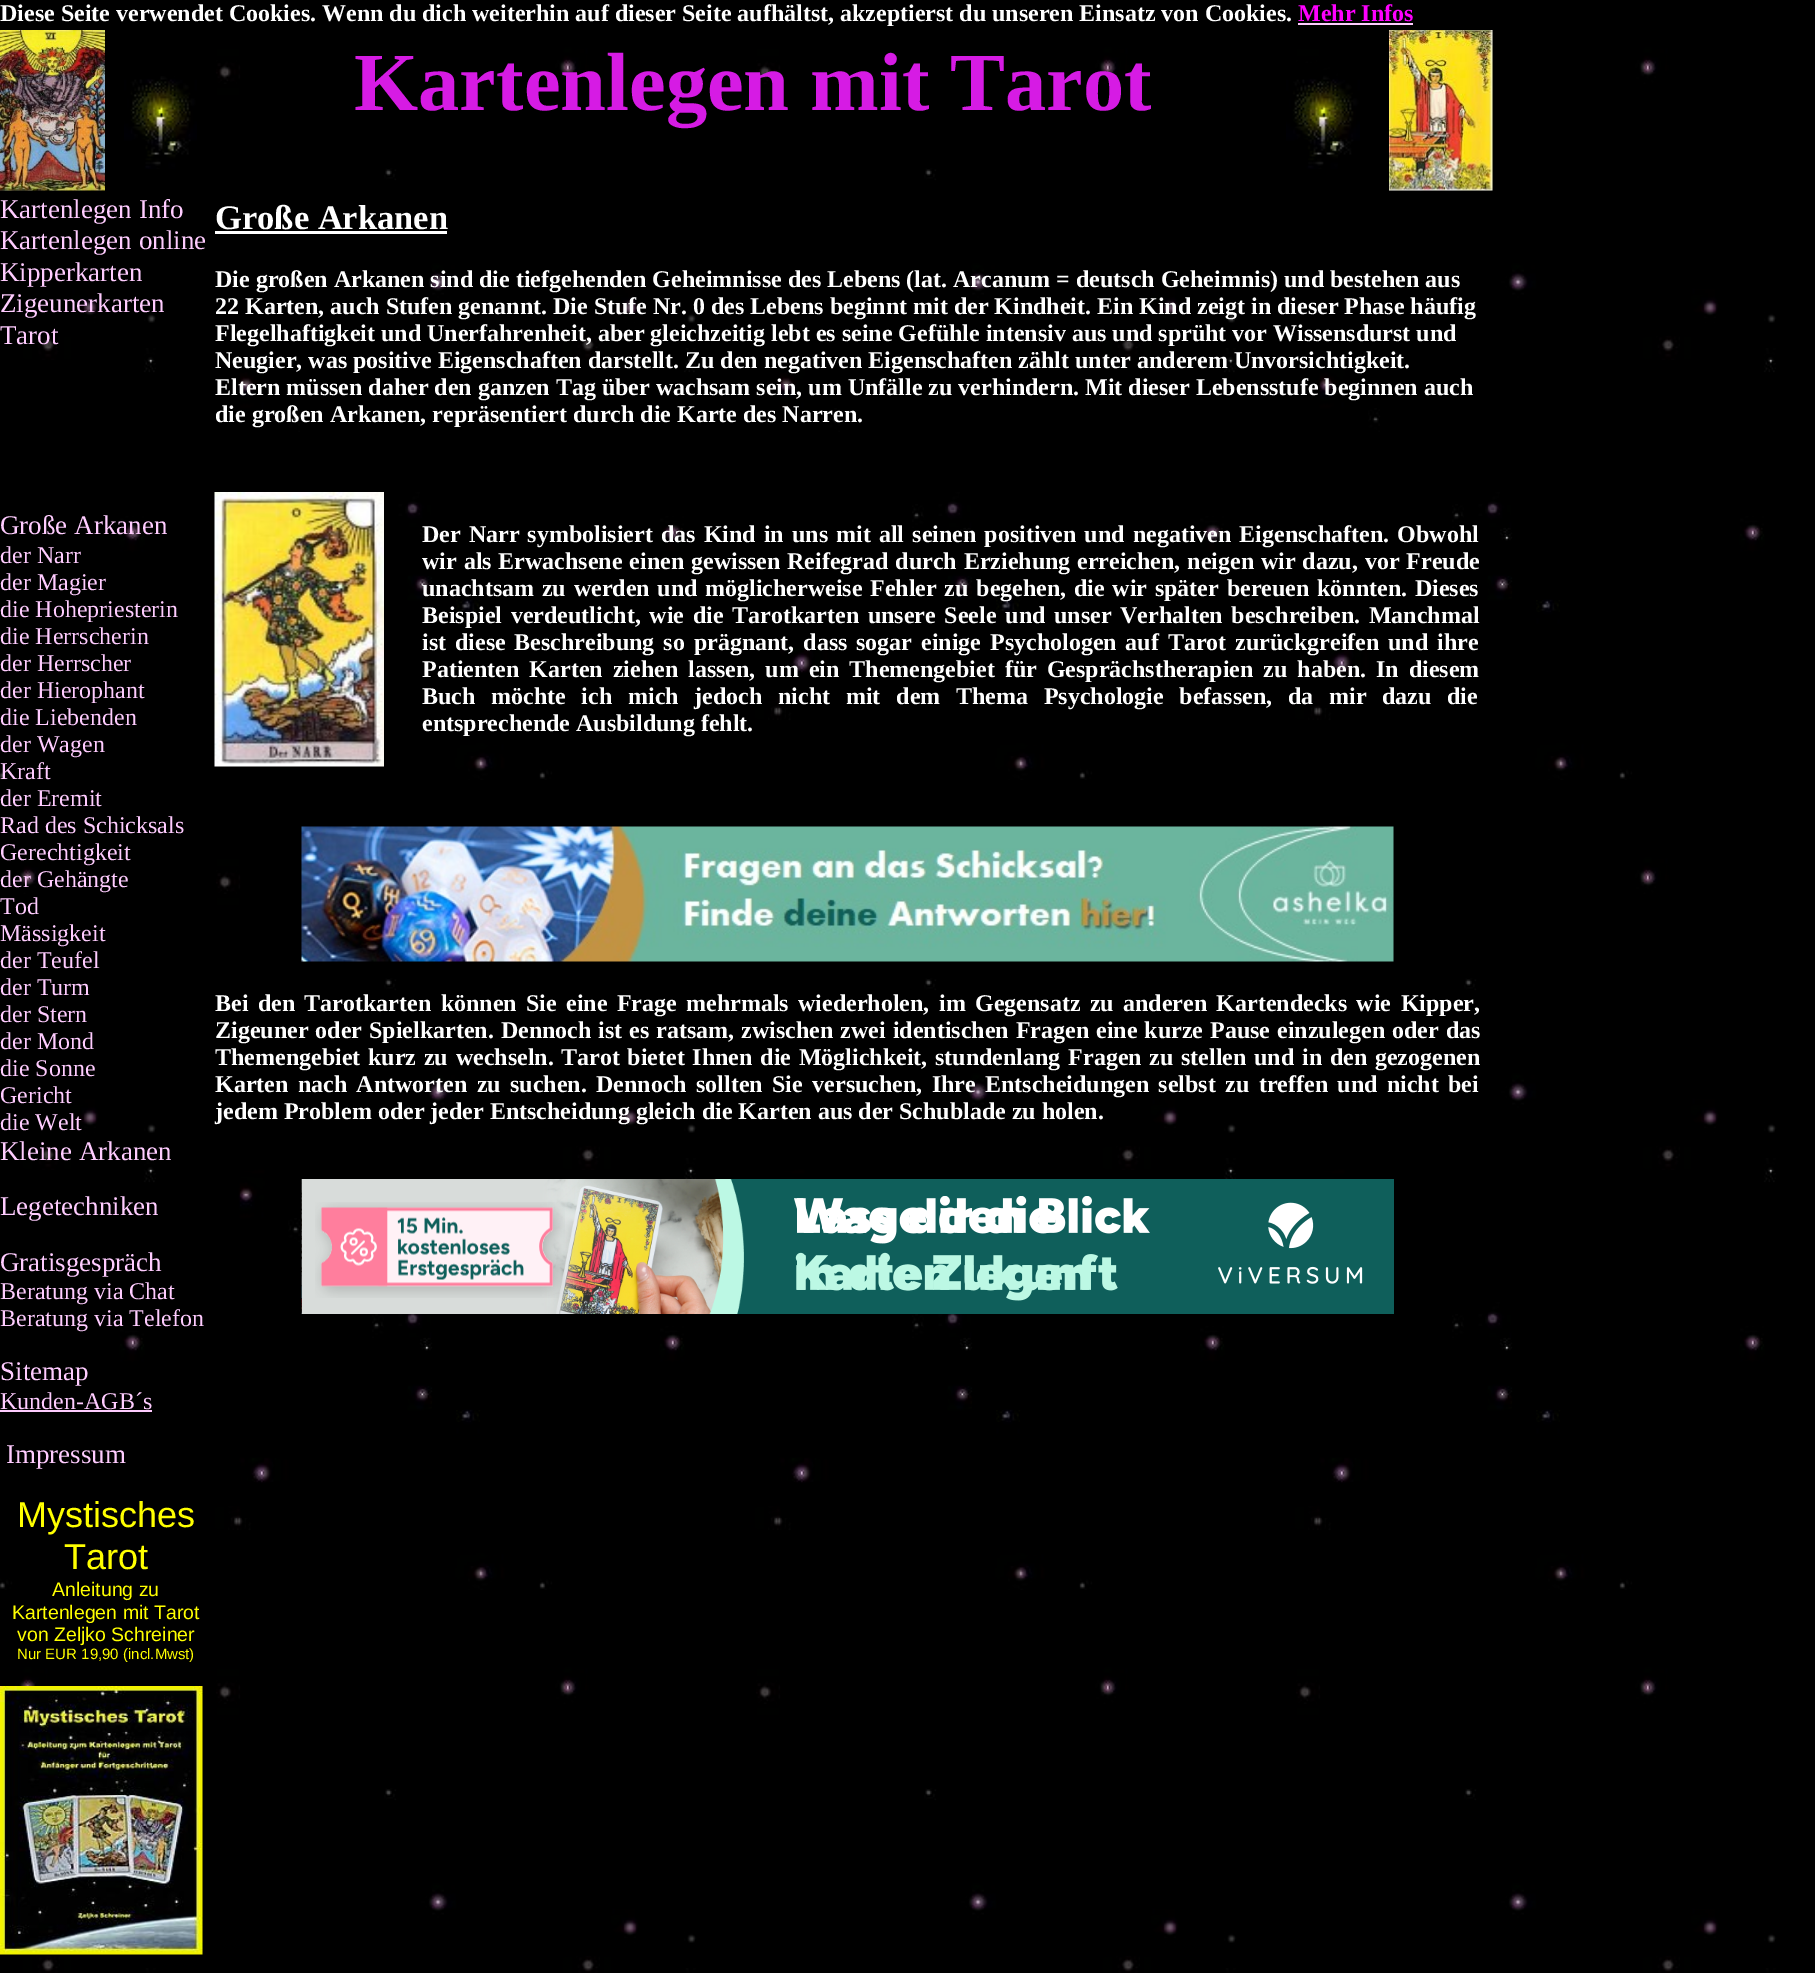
%!PS
<< /PageSize [1815 1973] >> setpagedevice
/picture { 5 dict begin { /h /w /y /x /name } { exch def } forall
  gsave x y translate w h scale
  w h 8 [w 0 0 h 0 0] name (r) file false 3 colorimage grestore end } def
0 1973 translate 1 -1 scale
4 setmiterlimit
1 setgray
0 0 1815 1973 rectfill
(img1.rgb) 0 0 1815 1973 picture
/LiberationSerif-Bold [24 0 0 -24 0 0] selectfont
0 21 moveto (Diese Seite verwendet Cookies. Wenn du dich weiterhin auf dieser Seite aufhältst, akzeptierst du unseren Einsatz von Cookies.) show
1 0 1 setrgbcolor
1298 21 moveto (Mehr Infos) show
1 0.8 1 setrgbcolor
1298 23 115 2 rectfill
(img2.rgb) 0 30 105 161 picture
(img3.rgb) 124 76 73 93 picture
/LiberationSerif-Bold [82.5 0 0 -82.5 0 0] selectfont
0.839 0.106 0.894 setrgbcolor
354 110 moveto (Kartenlegen mit Tarot) show
(img4.rgb) 1286 63 74 106 picture
(img5.rgb) 1389 30 104 161 picture
/LiberationSerif-Regular [27 0 0 -27 0 0] selectfont
1 0.8 1 setrgbcolor
0 218 moveto (Kartenlegen Info) show
0 249 moveto (Kartenlegen online) show
0 281 moveto (Kipperkarten) show
0 312 moveto (Zigeunerkarten) show
0 344 moveto (Tarot) show
0 534 moveto (Große Arkanen) show
/LiberationSerif-Regular [24 0 0 -24 0 0] selectfont
0 563 moveto (der Narr) show
0 590 moveto (der Magier) show
0 617 moveto (die Hohepriesterin) show
0 644 moveto (die Herrscherin) show
0 671 moveto (der Herrscher) show
0 698 moveto (der Hierophant) show
0 725 moveto (die Liebenden) show
0 752 moveto (der Wagen) show
0 779 moveto (Kraft) show
0 806 moveto (der Eremit) show
0 833 moveto (Rad des Schicksals) show
0 860 moveto (Gerechtigkeit) show
0 887 moveto (der Gehängte) show
0 914 moveto (Tod) show
0 941 moveto (Mässigkeit) show
0 968 moveto (der Teufel) show
0 995 moveto (der Turm) show
0 1022 moveto (der Stern) show
0 1049 moveto (der Mond) show
0 1076 moveto (die Sonne) show
0 1103 moveto (Gericht) show
0 1130 moveto (die Welt) show
/LiberationSerif-Regular [27 0 0 -27 0 0] selectfont
0 1160 moveto (Kleine Arkanen) show
0 1215 moveto (Legetechniken) show
0 1271 moveto (Gratisgespräch) show
/LiberationSerif-Regular [24 0 0 -24 0 0] selectfont
0 1299 moveto (Beratung via Chat) show
0 1326 moveto (Beratung via Telefon) show
/LiberationSerif-Regular [27 0 0 -27 0 0] selectfont
0 1380 moveto (Sitemap) show
/LiberationSerif-Regular [24 0 0 -24 0 0] selectfont
0 1409 moveto (Kunden-AGB´s) show
0 1410 152 2 rectfill
/LiberationSerif-Regular [27 0 0 -27 0 0] selectfont
6 1463 moveto (Impressum) show
/LiberationSans-Regular [36 0 0 -36 0 0] selectfont
1 1 0 setrgbcolor
17 1527 moveto (Mystisches) show
64 1569 moveto (Tarot) show
/LiberationSans-Regular [19.5 0 0 -19.5 0 0] selectfont
52 1596 moveto (Anleitung zu) show
12 1619 moveto (Kartenlegen mit Tarot) show
17 1641 moveto (von Zeljko Schreiner) show
/LiberationSans-Regular [15 0 0 -15 0 0] selectfont
17 1659 moveto (Nur EUR 19,90 \(incl.Mwst\)) show
(img6.rgb) 0 1686 203 269 picture
/LiberationSerif-Bold [34.5 0 0 -34.5 0 0] selectfont
1 setgray
215 229 moveto (Große Arkanen) show
215 231 232 3 rectfill
/LiberationSerif-Bold [24 0 0 -24 0 0] selectfont
215 287 moveto (Die großen Arkanen sind die tiefgehenden Geheimnisse des Lebens \(lat. Arcanum = deutsch Geheimnis\) und bestehen aus) show
215 314 moveto (22 Karten, auch Stufen genannt. Die Stufe Nr. 0 des Lebens beginnt mit der Kindheit. Ein Kind zeigt in dieser Phase häufig) show
215 341 moveto (Flegelhaftigkeit und Unerfahrenheit, aber gleichzeitig lebt es seine Gefühle intensiv aus und sprüht vor Wissensdurst und) show
215 368 moveto (Neugier, was positive Eigenschaften darstellt. Zu den negativen Eigenschaften zählt unter anderem Unvorsichtigkeit.) show
215 395 moveto (Eltern müssen daher den ganzen Tag über wachsam sein, um Unfälle zu verhindern. Mit dieser Lebensstufe beginnen auch) show
215 422 moveto (die großen Arkanen, repräsentiert durch die Karte des Narren.) show
(img7.rgb) 214 492 170 275 picture
422 542 moveto 2.1 0 32 (Der Narr symbolisiert das Kind in uns mit all seinen positiven und negativen Eigenschaften. Obwohl) widthshow
422 569 moveto 0.9 0 32 (wir als Erwachsene einen gewissen Reifegrad durch Erziehung erreichen, neigen wir dazu, vor Freude) widthshow
422 596 moveto 1.75 0 32 (unachtsam zu werden und möglicherweise Fehler zu begehen, die wir später bereuen könnten. Dieses) widthshow
422 623 moveto 2.75 0 32 (Beispiel verdeutlicht, wie die Tarotkarten unsere Seele und unser Verhalten beschreiben. Manchmal) widthshow
422 650 moveto 2.9 0 32 (ist diese Beschreibung so prägnant, dass sogar einige Psychologen auf Tarot zurückgreifen und ihre) widthshow
422 677 moveto 4 0 32 (Patienten Karten ziehen lassen, um ein Themengebiet für Gesprächstherapien zu haben. In diesem) widthshow
422 704 moveto 9.75 0 32 (Buch möchte ich mich jedoch nicht mit dem Thema Psychologie befassen, da mir dazu die) widthshow
422 731 moveto (entsprechende Ausbildung fehlt.) show
(img8.rgb) 301 826 1093 136 picture
215 1011 moveto 3.4 0 32 (Bei den Tarotkarten können Sie eine Frage mehrmals wiederholen, im Gegensatz zu anderen Kartendecks wie Kipper,) widthshow
215 1038 moveto 1 0 32 (Zigeuner oder Spielkarten. Dennoch ist es ratsam, zwischen zwei identischen Fragen eine kurze Pause einzulegen oder das) widthshow
215 1065 moveto 1.75 0 32 (Themengebiet kurz zu wechseln.) widthshow
561 1065 moveto 1.75 0 32 (Tarot bietet Ihnen die Möglichkeit, stundenlang Fragen zu stellen und in den gezogenen) widthshow
215 1092 moveto 3.4 0 32 (Karten nach Antworten zu suchen. Dennoch sollten Sie versuchen, Ihre Entscheidungen selbst zu treffen und nicht bei) widthshow
215 1119 moveto (jedem Problem oder jeder Entscheidung gleich die Karten aus der Schublade zu holen.) show
0.059 0.373 0.357 setrgbcolor
730 1179 664 135 rectfill
(img9.rgb) 301 1179 443 135 picture
(img10.rgb) 794 1196 356 95 picture
(img11.rgb) 315 1202 250 96 picture
(img12.rgb) 797 1196 292 105 picture
(img13.rgb) 1218 1202 145 82 picture
showpage
